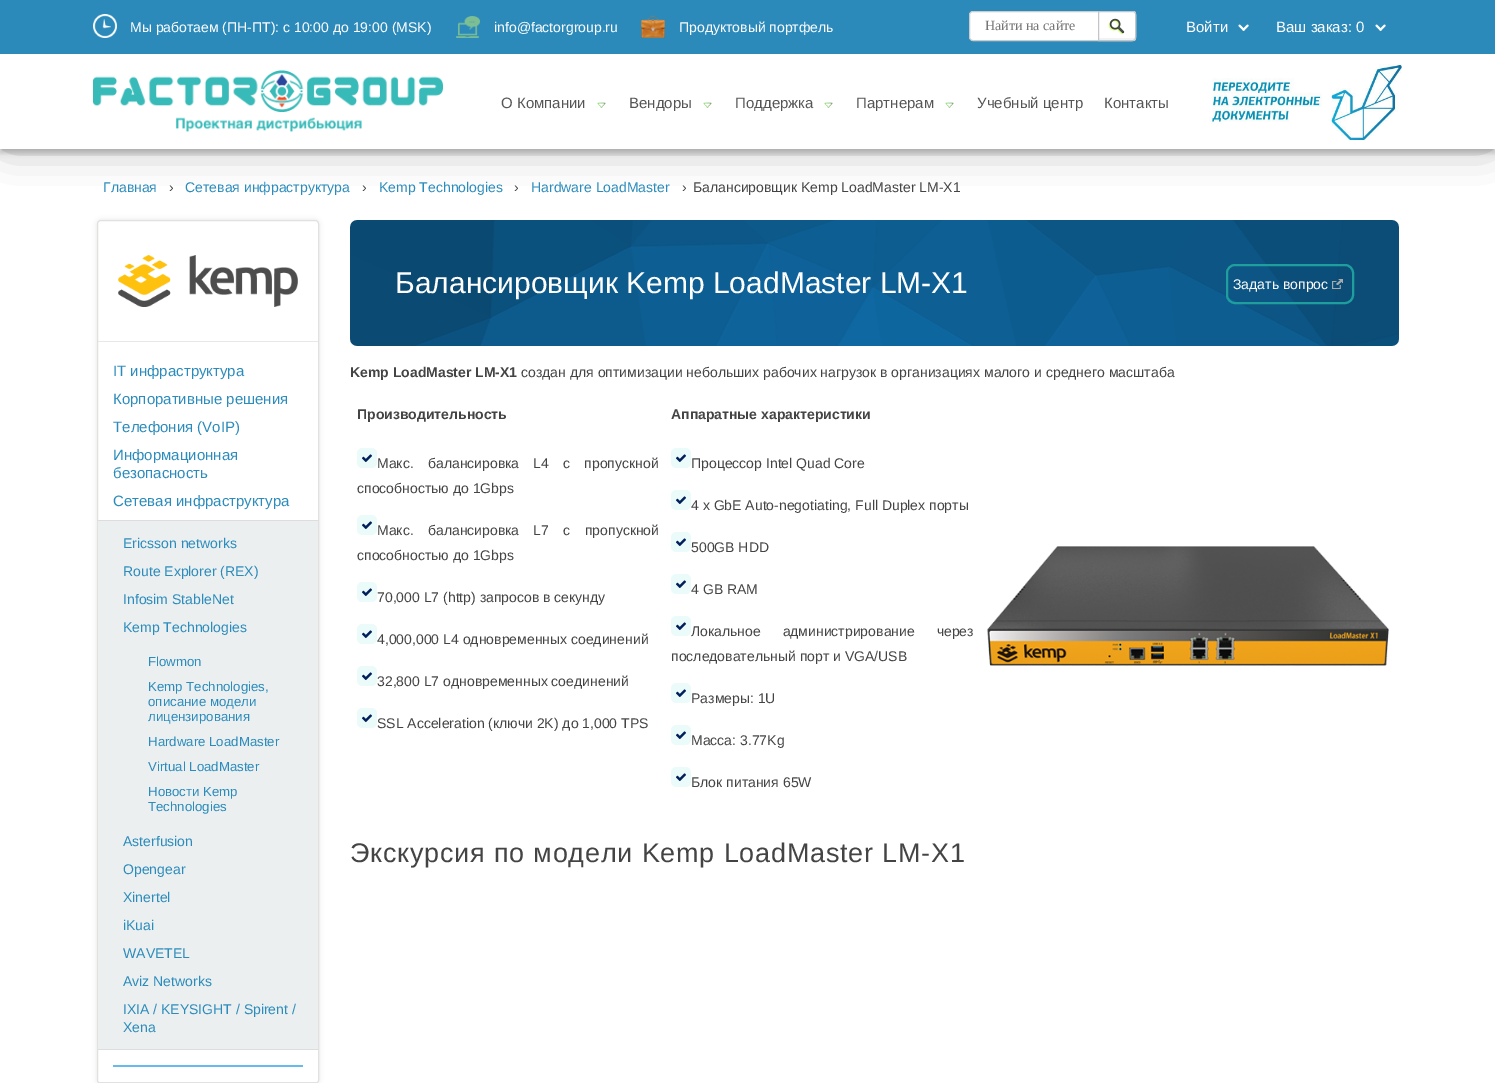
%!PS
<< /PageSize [1495 1083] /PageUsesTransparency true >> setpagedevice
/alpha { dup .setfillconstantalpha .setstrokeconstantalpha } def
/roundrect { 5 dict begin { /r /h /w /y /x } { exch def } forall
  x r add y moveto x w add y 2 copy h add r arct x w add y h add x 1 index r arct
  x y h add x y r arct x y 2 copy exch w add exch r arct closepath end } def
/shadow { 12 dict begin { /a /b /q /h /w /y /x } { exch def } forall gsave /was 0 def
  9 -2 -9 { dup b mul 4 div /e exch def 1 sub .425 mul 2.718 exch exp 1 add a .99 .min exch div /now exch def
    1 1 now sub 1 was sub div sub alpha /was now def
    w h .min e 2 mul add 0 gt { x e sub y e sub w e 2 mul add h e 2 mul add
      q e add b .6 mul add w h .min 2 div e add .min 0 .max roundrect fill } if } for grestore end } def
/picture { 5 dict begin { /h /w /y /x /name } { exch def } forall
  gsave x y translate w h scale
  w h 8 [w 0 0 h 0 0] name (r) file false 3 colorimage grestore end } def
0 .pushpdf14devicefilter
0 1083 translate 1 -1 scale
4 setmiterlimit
1 setgray
0 0 1495 1083 rectfill
0 setgray
0 4 1495 149 0 2.5 0.2 shadow
0 96 1495 45 22.5 20 0.45 shadow
0.169 0.541 0.729 setrgbcolor
0 0 1495 54 rectfill
(img1.rgb) 93 14 24 24 picture
/LiberationSans-Regular [14 0 0 -14 0 0] selectfont
1 setgray
130 32 moveto (Мы работаем \(ПН-ПТ\): с 10:00 до 19:00 \(MSK\)) show
(img2.rgb) 456 16 24 22 picture
494 32 moveto (info@factorgroup.ru) show
(img3.rgb) 641 15 24 23 picture
679 32 moveto (Продуктовый портфель) show
969.5 11.5 166 29 3.5 roundrect gsave fill grestore
0.8 setgray
stroke
/LiberationSerif-Regular [14 0 0 -14 0 0] selectfont
0.459 setgray
985 30 moveto (Найти на сайте) show
1 setgray
newpath 1098 11 moveto 1133 11 lineto 1134.5 11 1136 12.5 1136 14 curveto 1136 38 lineto 1136 39.5 1134.5 41 1133 41 curveto 1098 41 lineto closepath fill
(img4.rgb) 1108 18 17 17 picture
0.949 setgray
newpath 1099 38 moveto 1099 40 lineto 1133 40 lineto 1134 40 1135 39 1135 38 curveto 1135 36 lineto 1135 37 1134 38 1133 38 curveto closepath fill
0.765 0.776 0.788 setrgbcolor
newpath 1098.5 11.5 moveto 1133 11.5 lineto 1134.5 11.5 1135.5 12.5 1135.5 14 curveto 1135.5 38 lineto 1135.5 39.5 1134.5 40.5 1133 40.5 curveto 1098.5 40.5 lineto closepath stroke
(img5.rgb) 1238 24 11 7 picture
/LiberationSans-Regular [15 0 0 -15 0 0] selectfont
1 setgray
1186 32 moveto (Войти) show
1276 32 moveto (Ваш заказ: 0) show
(img5.rgb) 1375 24 11 7 picture
0 54 1495 95 rectfill
(img6.rgb) 93 70 350 62 picture
(img7.rgb) 597 102 9 6 picture
0.333 setgray
501 108 moveto (О Компании) show
(img7.rgb) 703 102 9 6 picture
629 108 moveto (Вендоры) show
(img7.rgb) 824 102 9 6 picture
735 108 moveto (Поддержка) show
(img7.rgb) 945 102 9 6 picture
856 108 moveto (Партнерам) show
977 108 moveto (Учебный центр) show
1104 108 moveto (Контакты) show
(img8.rgb) 1209 64 193 76 picture
/LiberationSans-Regular [14 0 0 -14 0 0] selectfont
0.169 0.545 0.733 setrgbcolor
103 192 moveto (Главная) show
0.267 setgray
169 192 moveto (›) show
0.169 0.545 0.733 setrgbcolor
185 192 moveto (Сетевая инфраструктура) show
0.267 setgray
362 192 moveto (›) show
0.169 0.545 0.733 setrgbcolor
379 192 moveto (Kemp Technologies) show
0.267 setgray
514 192 moveto (›) show
0.169 0.545 0.733 setrgbcolor
531 192 moveto (Hardware LoadMaster) show
0.267 setgray
682 192 moveto (›) show
693 192 moveto (Балансировщик Kemp LoadMaster LM-X1) show
gsave
newpath 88 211 moveto 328 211 lineto 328 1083 lineto 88 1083 lineto closepath 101 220 moveto 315 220 lineto 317 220 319 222 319 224 curveto 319 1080 lineto 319 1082 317 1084 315 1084 curveto 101 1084 lineto 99 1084 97 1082 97 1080 curveto 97 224 lineto 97 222 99 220 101 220 curveto closepath eoclip newpath
0 setgray
97 220 222 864 4 2.5 0.1 shadow
grestore
0.882 0.882 0.878 setrgbcolor
97.5 220.5 221 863 3.5 roundrect stroke
99 1082 218 1 rectfill
(img9.rgb) 118 255 180 52 picture
0.91 setgray
98 341 220 1 rectfill
/LiberationSans-Regular [15 0 0 -15 0 0] selectfont
0.169 0.545 0.733 setrgbcolor
113 376 moveto (IT инфраструктура) show
113 404 moveto (Корпоративные решения) show
113 432 moveto (Телефония \(VoIP\)) show
113 460 moveto (Информационная) show
113 478 moveto (безопасность) show
113 506 moveto (Сетевая инфраструктура) show
0.925 0.937 0.941 setrgbcolor
98 521 220 528 rectfill
0.867 setgray
98 520 220 1 rectfill
98 1049 220 1 rectfill
/LiberationSans-Regular [14 0 0 -14 0 0] selectfont
0.169 0.545 0.733 setrgbcolor
123 548 moveto (Ericsson networks) show
123 576 moveto (Route Explorer \(REX\)) show
123 604 moveto (Infosim StableNet) show
123 632 moveto (Kemp Technologies) show
/LiberationSans-Regular [13.25 0 0 -13.25 0 0] selectfont
148 666 moveto (Flowmon) show
148 691 moveto (Kemp Technologies,) show
148 706 moveto (описание модели) show
148 721 moveto (лицензирования) show
148 746 moveto (Hardware LoadMaster) show
148 771 moveto (Virtual LoadMaster) show
148 796 moveto (Новости Kemp) show
148 811 moveto (Technologies) show
/LiberationSans-Regular [14 0 0 -14 0 0] selectfont
123 846 moveto (Asterfusion) show
123 874 moveto (Opengear) show
123 902 moveto (Xinertel) show
123 930 moveto (iKuai) show
123 958 moveto (WAVETEL) show
123 986 moveto (Aviz Networks) show
123 1014 moveto (IXIA / KEYSIGHT / Spirent /) show
123 1032 moveto (Xena) show
0.4 0.729 0.933 setrgbcolor
113 1065 190 2 rectfill
(img10.rgb) 350 220 1049 126 picture
/LiberationSans-Regular [30 0 0 -30 0 0] selectfont
1 setgray
395 293 moveto (Балансировщик Kemp LoadMaster LM-X1) show
0.122 0.62 0.62 setrgbcolor
2 setlinewidth
1227 265 126 38 8 roundrect stroke
/LiberationSans-Regular [14 0 0 -14 0 0] selectfont
1 setgray
1233 289 moveto (Задать вопрос) show
(img11.rgb) 1332 279 11 10 picture
/LiberationSans-Bold [14 0 0 -14 0 0] selectfont
0.267 setgray
350 377 moveto (Kemp LoadMaster LM-X1) show
/LiberationSans-Regular [14 0 0 -14 0 0] selectfont
521 377 moveto (создан для оптимизации небольших рабочих нагрузок в организациях малого и среднего масштаба) show
/LiberationSans-Bold [14 0 0 -14 0 0] selectfont
357 419 moveto (Производительность) show
671 419 moveto (Аппаратные характеристики) show
(img12.rgb) 987 546 402 120 picture
(img13.rgb) 357 448 20 20 picture
/LiberationSans-Regular [14 0 0 -14 0 0] selectfont
377 468 moveto 10.5 0 32 (Макс. балансировка) widthshow
533 468 moveto 10.5 0 32 (L4 с пропускной) widthshow
357 493 moveto (способностью до 1Gbps) show
(img13.rgb) 357 515 20 20 picture
377 535 moveto 10.5 0 32 (Макс. балансировка L7 с пропускной) widthshow
357 560 moveto (способностью до 1Gbps) show
(img13.rgb) 357 582 20 20 picture
377 602 moveto (70,000 L7 \(http\) запросов в секунду) show
(img13.rgb) 357 624 20 20 picture
377 644 moveto (4,000,000 L4 одновременных соединений) show
(img13.rgb) 357 666 20 20 picture
377 686 moveto (32,800 L7 одновременных соединений) show
(img13.rgb) 357 708 20 20 picture
377 728 moveto (SSL Acceleration \(ключи 2K\) до 1,000 TPS) show
(img13.rgb) 671 448 20 20 picture
691 468 moveto (Процессор Intel Quad Core) show
(img13.rgb) 671 490 20 20 picture
691 510 moveto (4 x GbE Auto-negotiating, Full Duplex порты) show
(img13.rgb) 671 532 20 20 picture
691 552 moveto (500GB HDD) show
(img13.rgb) 671 574 20 20 picture
691 594 moveto (4 GB RAM) show
(img13.rgb) 671 616 20 20 picture
691 636 moveto 18 0 32 (Локальное администрирование через) widthshow
671 661 moveto (последовательный порт и VGA/USB) show
(img13.rgb) 671 683 20 20 picture
691 703 moveto (Размеры: 1U) show
(img13.rgb) 671 725 20 20 picture
691 745 moveto (Масса: 3.77Kg) show
(img13.rgb) 671 767 20 20 picture
691 787 moveto (Блок питания 65W) show
/LiberationSans-Regular [27 0 0 -27 0 0] selectfont
350 862 moveto 0.8 0 (Экскурсия по модели Kemp LoadMaster LM-X1) ashow
.poppdf14devicefilter showpage
